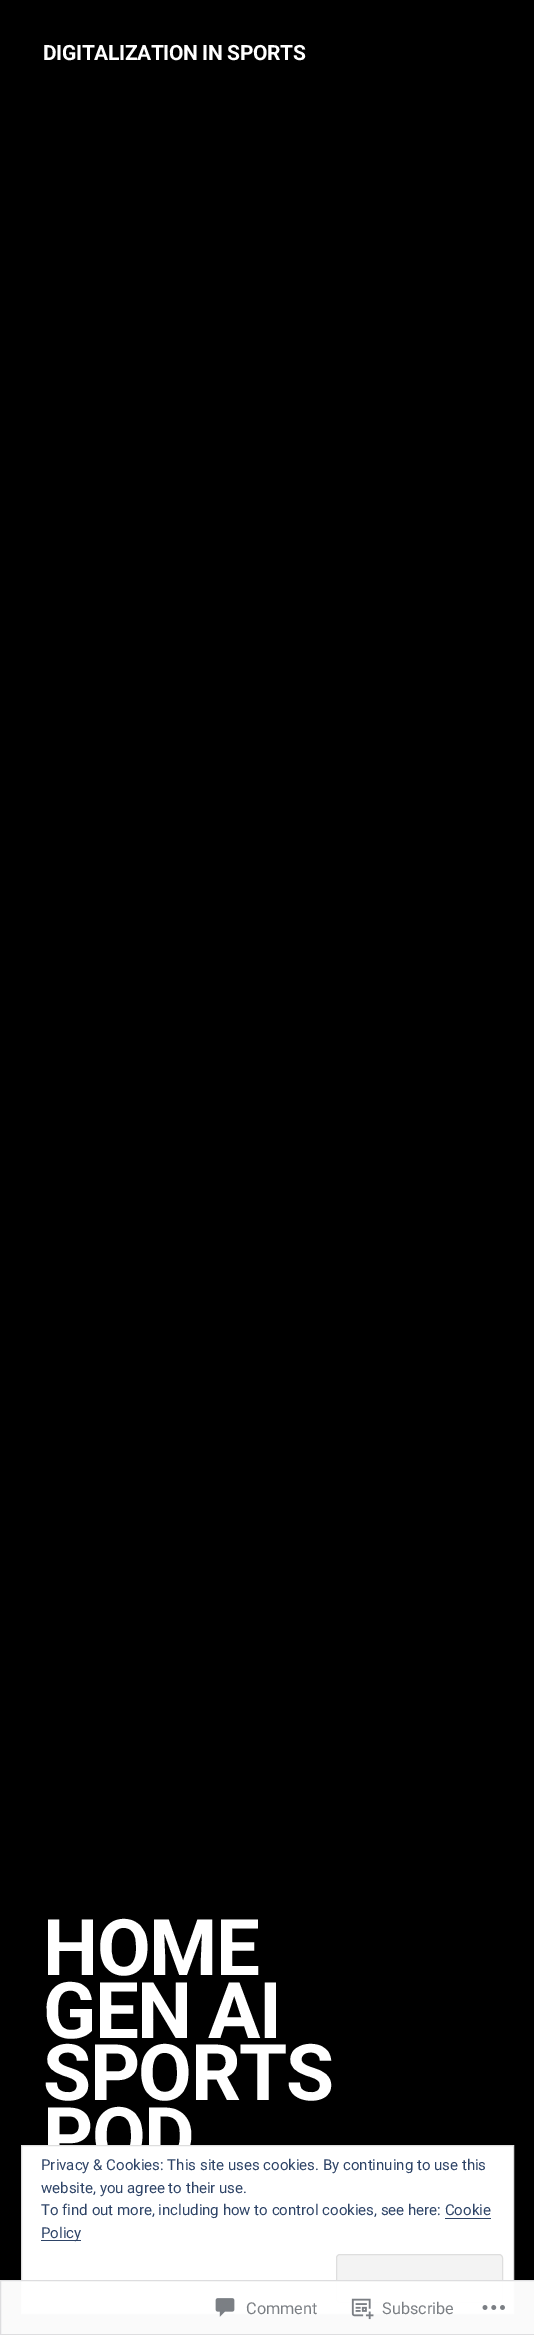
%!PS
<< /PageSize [534 2335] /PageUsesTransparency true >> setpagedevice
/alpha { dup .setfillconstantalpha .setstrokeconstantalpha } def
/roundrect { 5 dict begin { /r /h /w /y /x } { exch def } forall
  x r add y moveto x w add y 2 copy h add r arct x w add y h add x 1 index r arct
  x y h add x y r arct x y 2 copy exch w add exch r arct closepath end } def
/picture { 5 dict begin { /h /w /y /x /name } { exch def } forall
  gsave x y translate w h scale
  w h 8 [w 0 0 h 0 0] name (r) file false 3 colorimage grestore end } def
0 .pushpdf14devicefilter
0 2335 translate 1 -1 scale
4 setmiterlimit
0 setgray
0 0 534 2335 rectfill
/Roboto-Bold [21 0 0 -21 0 0] selectfont
1 setgray
43 60 moveto -0.4 0 (DIGITALIZATION IN SPORTS) ashow
/Roboto-Bold [78 0 0 -78 0 0] selectfont
43 1975 moveto -1.5 0 (HOME) ashow
43 2038 moveto -1.5 0 (GEN AI) ashow
43 2100 moveto -1.5 0 (SPORTS) ashow
43 2163 moveto -1.5 0 (POD) ashow
newpath 21.5 2145.5 moveto 513.5 2145.5 lineto 513.5 2313.5 lineto 21.5 2313.5 lineto closepath gsave fill grestore
0.871 setgray
stroke
/Roboto-Regular [15 0 0 -15 0 0] selectfont
0.18 0.267 0.404 setrgbcolor
41 2170 moveto (Privacy & Cookies: This site uses cookies. By continuing to use this) show
41 2193 moveto (website, you agree to their use.) show
41 2215 moveto (To find out more, including how to control cookies, see here: Cookie) show
41 2240 40 1 rectfill
41 2238 moveto (Policy) show
445 2218 46 1 rectfill
0.953 setgray
336.5 2254.5 166 48 3.5 roundrect gsave fill grestore
0.871 setgray
stroke
0.98 alpha
1 setgray
0 2280 534 55 rectfill
0.863 0.863 0.871 setrgbcolor
0.5 2280.5 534 54 rectstroke
1 alpha
(img1.rgb) 215 2298 20 19 picture
/Roboto-Regular [16.25 0 0 -16.25 0 0] selectfont
0.482 0.498 0.518 setrgbcolor
246 2314 moveto (Comment) show
(img2.rgb) 351 2298 23 22 picture
382 2314 moveto (Subscribe) show
(img3.rgb) 482 2305 23 5 picture
.poppdf14devicefilter showpage
